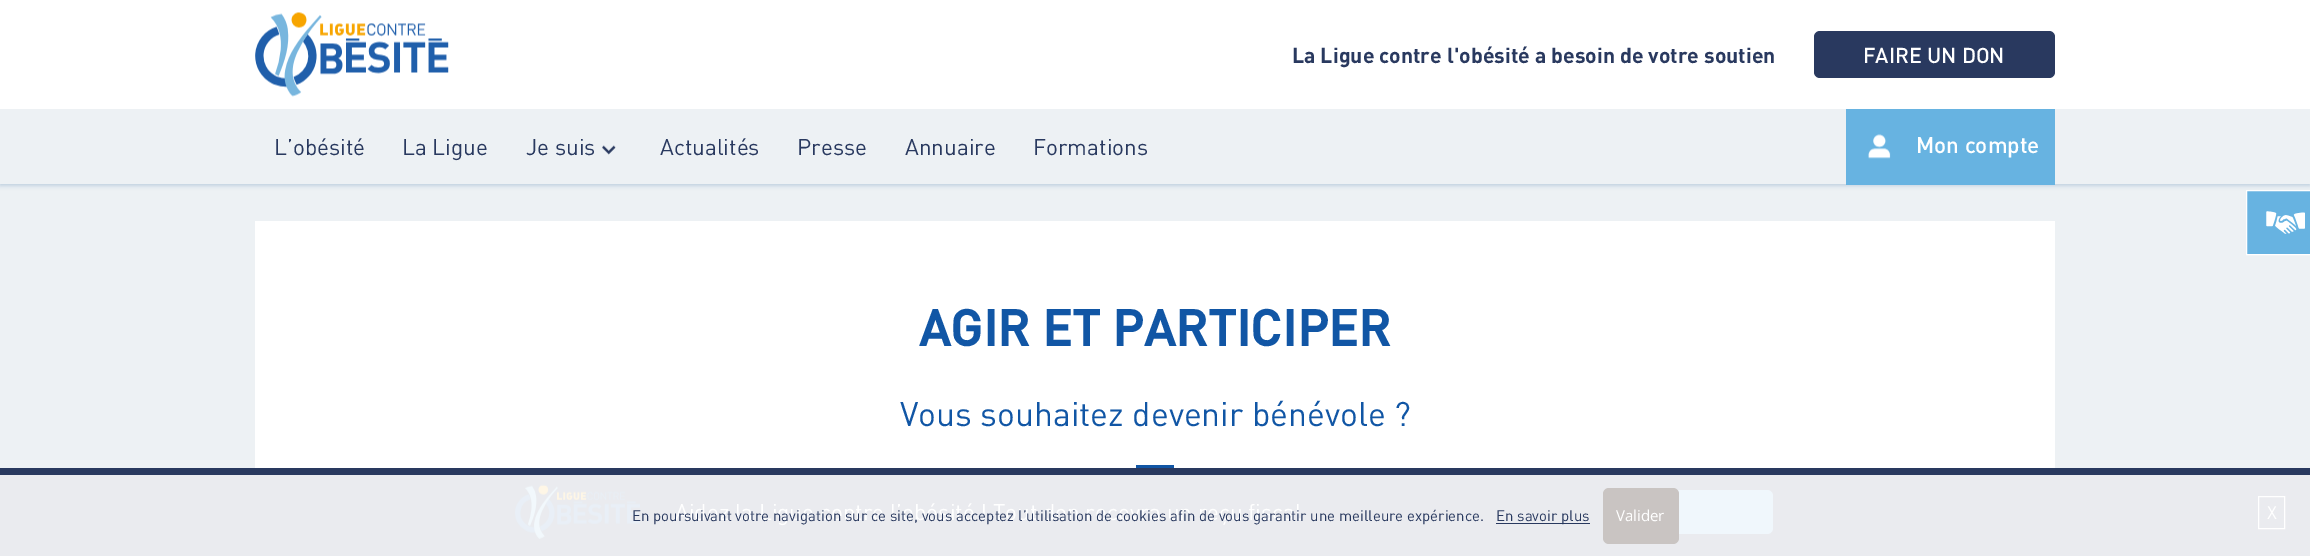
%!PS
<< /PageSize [2310 556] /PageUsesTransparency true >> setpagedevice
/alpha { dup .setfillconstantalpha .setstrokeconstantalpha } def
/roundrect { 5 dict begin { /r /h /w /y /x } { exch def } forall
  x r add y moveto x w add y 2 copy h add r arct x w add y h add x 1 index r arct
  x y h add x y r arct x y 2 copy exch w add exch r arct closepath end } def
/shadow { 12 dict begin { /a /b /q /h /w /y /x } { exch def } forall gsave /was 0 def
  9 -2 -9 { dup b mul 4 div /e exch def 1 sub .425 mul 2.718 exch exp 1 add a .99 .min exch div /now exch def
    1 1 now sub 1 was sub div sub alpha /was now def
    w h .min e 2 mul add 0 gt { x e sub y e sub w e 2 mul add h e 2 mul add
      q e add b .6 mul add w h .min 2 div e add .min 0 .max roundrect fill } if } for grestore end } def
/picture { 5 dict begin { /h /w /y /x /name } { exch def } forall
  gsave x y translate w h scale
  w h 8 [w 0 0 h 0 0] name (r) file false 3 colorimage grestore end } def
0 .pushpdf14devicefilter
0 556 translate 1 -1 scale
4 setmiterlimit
0.929 0.945 0.957 setrgbcolor
0 0 2310 556 rectfill
0.404 0.702 0.882 setrgbcolor
newpath 2246.5 190.5 moveto 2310.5 190.5 lineto 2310.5 254.5 lineto 2246.5 254.5 lineto closepath gsave fill grestore
1 setgray
stroke
gsave
newpath 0 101 moveto 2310 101 lineto 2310 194 lineto 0 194 lineto closepath 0 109 moveto 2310 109 lineto 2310 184 lineto 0 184 lineto closepath eoclip newpath
0.502 0.639 0.765 setrgbcolor
0 110 2310 75 0 2.5 0.53 shadow
grestore
0 0 2310 109 rectfill
(img1.rgb) 255 12 194 85 picture
/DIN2-Bold [21.25 0 0 -21.25 0 0] selectfont
0.161 0.224 0.373 setrgbcolor
1292 63 moveto (La Ligue contre l'obésité a besoin de votre soutien) show
1814 31 241 47 6 roundrect fill
/DIN-Medium [21.25 0 0 -21.25 0 0] selectfont
1 setgray
1863 63 moveto (FAIRE UN DON) show
/DIN-Regular [22.5 0 0 -22.5 0 0] selectfont
0.161 0.224 0.373 setrgbcolor
274 155 moveto (L’obésité) show
402 155 moveto (La Ligue) show
526 155 moveto (Je suis) show
(img2.rgb) 602 145 14 10 picture
660 155 moveto (Actualités) show
797 155 moveto (Presse) show
905 155 moveto (Annuaire) show
1033 155 moveto (Formations) show
0.404 0.702 0.882 setrgbcolor
1846 109 209 76 rectfill
(img3.rgb) 1868 134 23 25 picture
/DIN-Medium [22.5 0 0 -22.5 0 0] selectfont
1 setgray
1916 153 moveto (Mon compte) show
255 221 1800 247 rectfill
/DIN-Bold [50 0 0 -50 0 0] selectfont
0.067 0.337 0.647 setrgbcolor
919 346 moveto (AGIR ET PARTICIPER) show
/DIN-Regular [33.75 0 0 -33.75 0 0] selectfont
900 426 moveto (Vous souhaitez devenir bénévole ?) show
1136 465 38 3 rectfill
(img4.rgb) 2266 211 39 23 picture
0.161 0.224 0.373 setrgbcolor
0 468 2310 7 rectfill
0.918 0.922 0.937 setrgbcolor
0 475 2310 81 rectfill
(img5.rgb) 515 484 125 55 picture
/DIN-Regular [22.5 0 0 -22.5 0 0] selectfont
1 setgray
675 520 moveto (Aidez la Ligue contre l’obésité ! Tout don recevra un reçu fiscal) show
0.941 0.969 0.988 setrgbcolor
1616 490 157 44 6 roundrect fill
1 setgray
2258.5 496.5 26 32 rectstroke
/DIN-Regular [18 0 0 -18 0 0] selectfont
2267 519 moveto (X) show
/DIN-Regular [15 0 0 -15 0 0] selectfont
0.161 0.224 0.373 setrgbcolor
632 521 moveto (En poursuivant votre navigation sur ce site, vous acceptez l’utilisation de cookies afin de vous garantir une meilleure expérience.) show
1496 523 94 1 rectfill
1496 521 moveto (En savoir plus) show
0.788 0.769 0.761 setrgbcolor
1603 488 76 56 6 roundrect fill
/OpenSans-Regular [15 0 0 -15 0 0] selectfont
1 setgray
1616 521 moveto (Valider) show
.poppdf14devicefilter showpage
